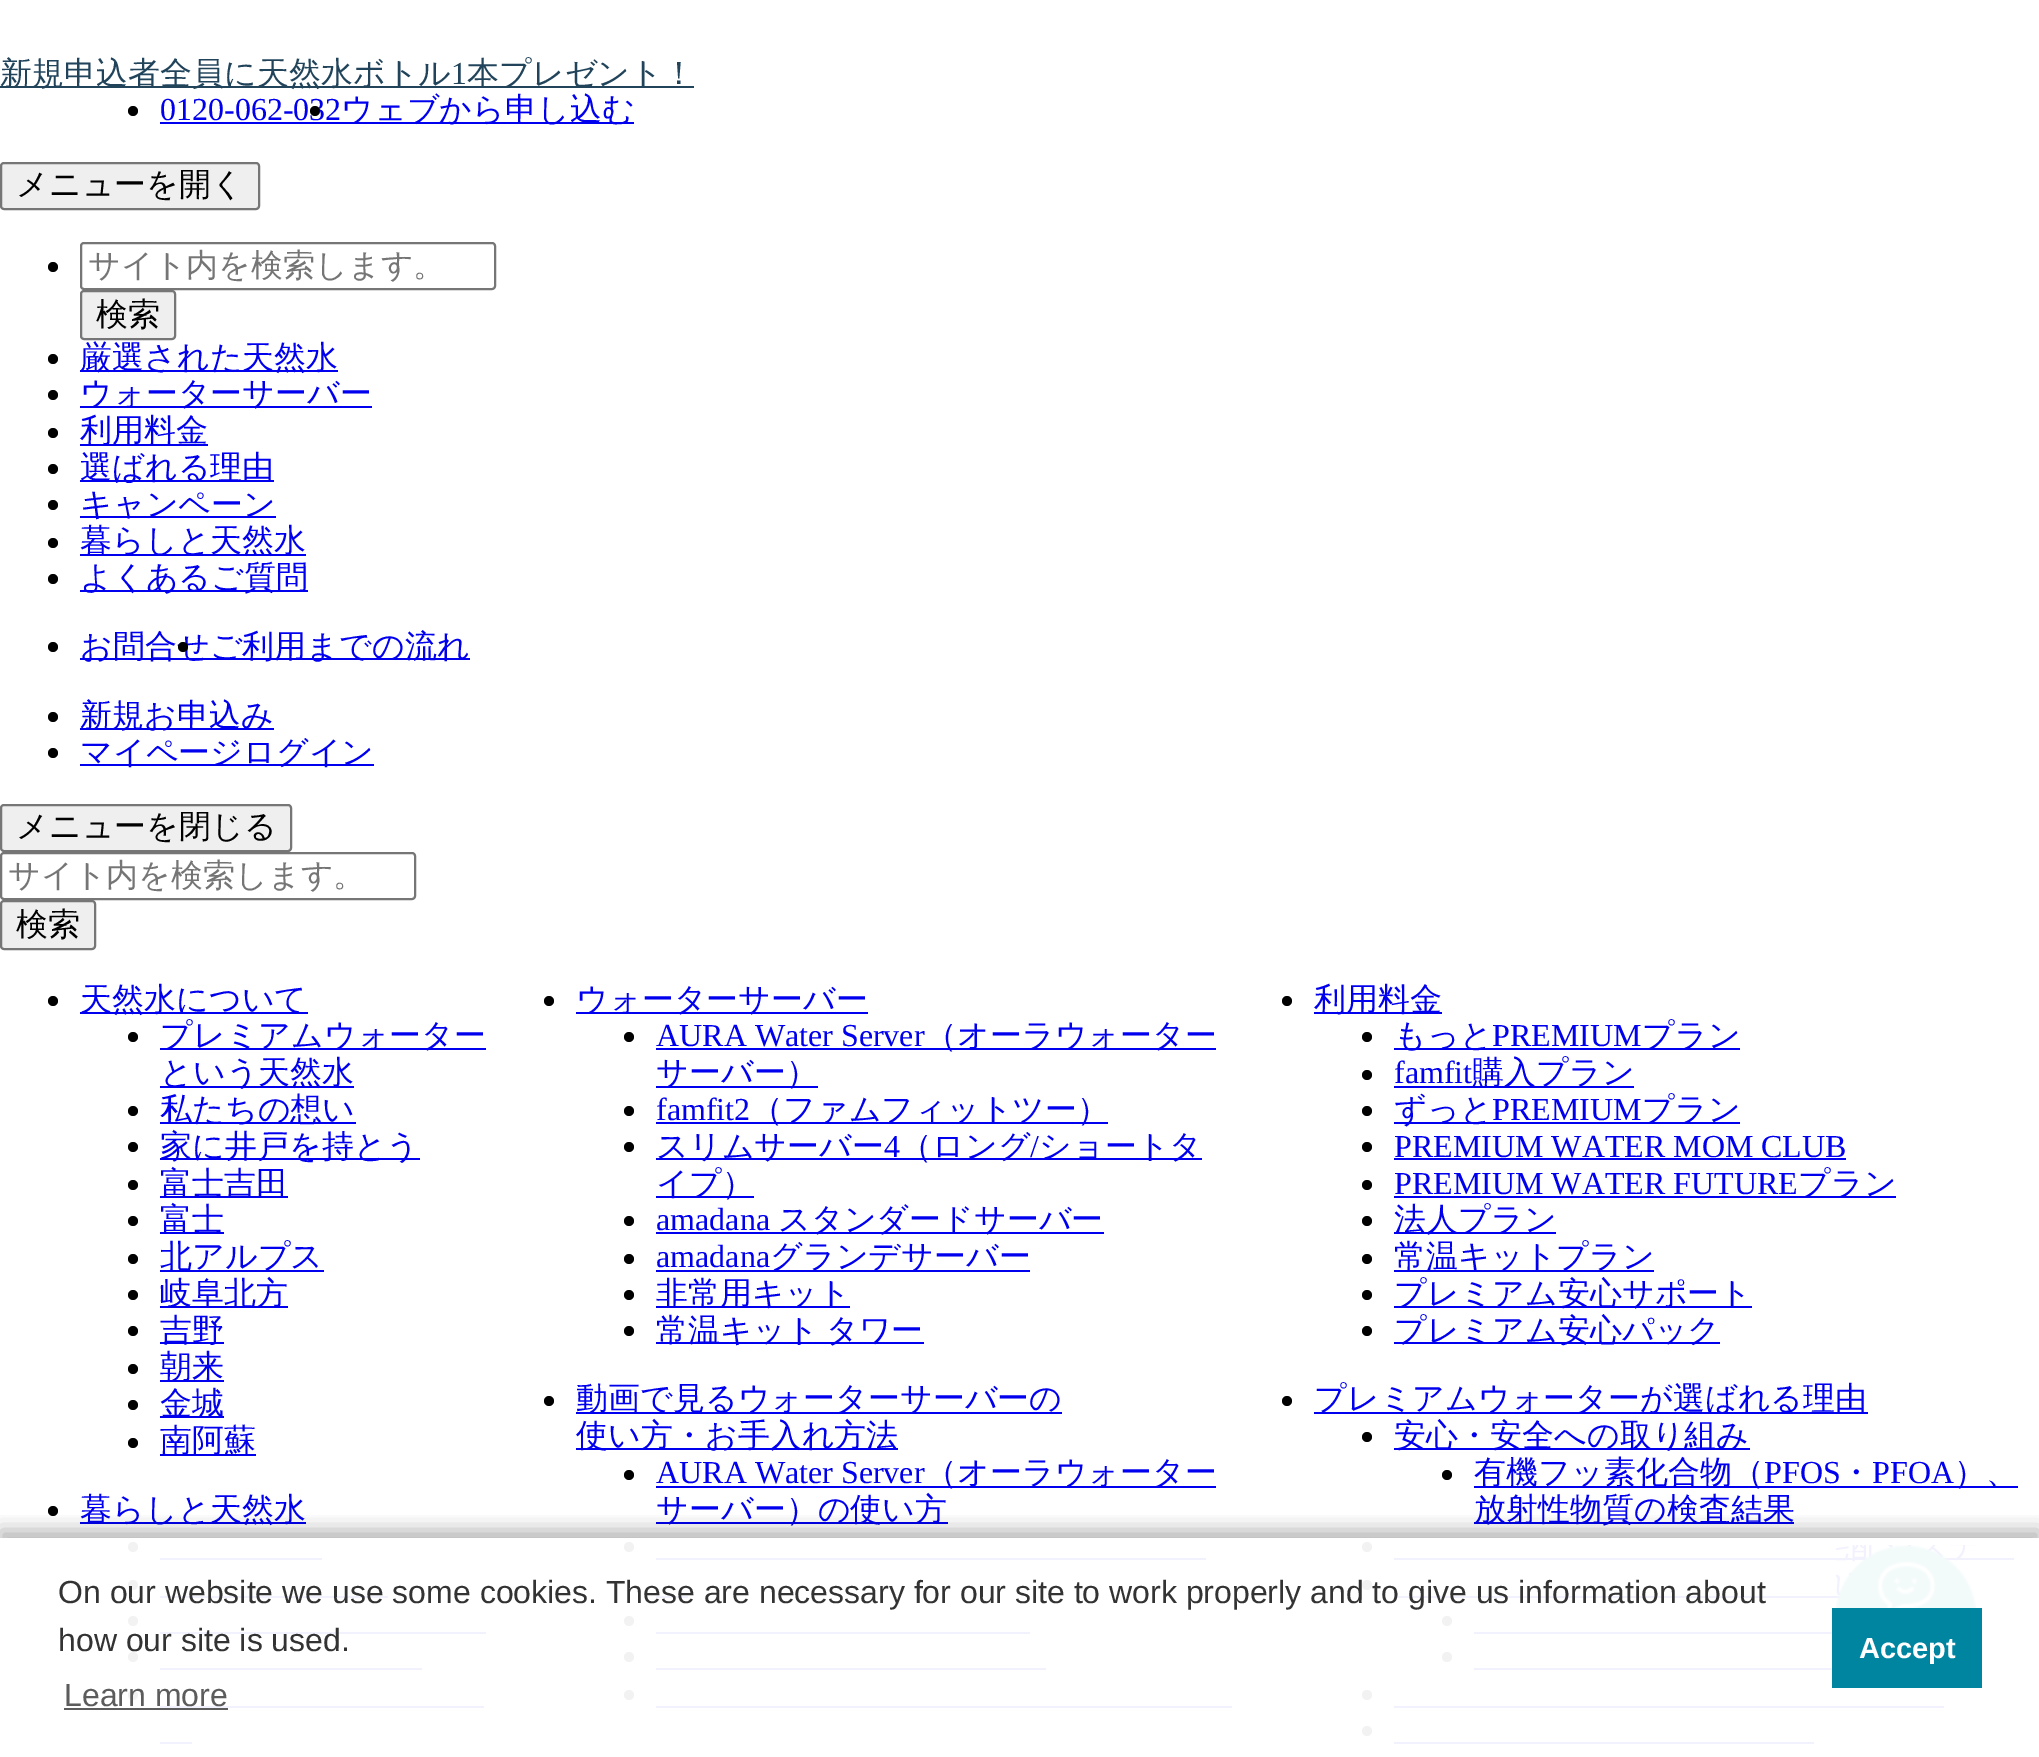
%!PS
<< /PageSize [2039 1757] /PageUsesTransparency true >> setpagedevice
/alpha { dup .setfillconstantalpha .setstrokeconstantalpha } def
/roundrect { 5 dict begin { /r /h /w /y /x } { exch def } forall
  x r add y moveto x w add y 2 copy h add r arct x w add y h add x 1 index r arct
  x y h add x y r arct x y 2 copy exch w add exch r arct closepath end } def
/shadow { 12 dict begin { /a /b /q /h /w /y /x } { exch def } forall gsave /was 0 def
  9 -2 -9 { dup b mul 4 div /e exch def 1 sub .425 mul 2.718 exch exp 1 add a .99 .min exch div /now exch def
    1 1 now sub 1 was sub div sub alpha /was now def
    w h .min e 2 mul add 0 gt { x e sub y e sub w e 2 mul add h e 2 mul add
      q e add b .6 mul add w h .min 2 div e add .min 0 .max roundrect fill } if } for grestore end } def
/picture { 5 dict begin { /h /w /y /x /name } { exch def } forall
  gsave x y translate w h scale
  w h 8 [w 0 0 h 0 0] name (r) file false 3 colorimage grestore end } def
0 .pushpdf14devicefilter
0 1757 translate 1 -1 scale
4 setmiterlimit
1 setgray
0 0 2039 1757 rectfill
0.129 0.267 0.357 setrgbcolor
0 86 694 2 rectfill
/WenQuanYiZenHei-Medium [32 0 0 -32 0 0] selectfont
0 84 moveto (新規申込者全員に天然水ボトル) show
/LiberationSerif-Regular [32 0 0 -32 0 0] selectfont
451 84 moveto (1) show
/WenQuanYiZenHei-Medium [32 0 0 -32 0 0] selectfont
467 84 moveto (本プレゼント！) show
0 setgray
newpath 133 111 5 0 360 arc closepath fill
/LiberationSerif-Regular [32 0 0 -32 0 0] selectfont
0 0 0.933 setrgbcolor
160 120 moveto (0120-062-032) show
160 122 474 2 rectfill
0 setgray
newpath 315 111 5 0 360 arc closepath fill
/WenQuanYiZenHei-Medium [32 0 0 -32 0 0] selectfont
0 0 0.933 setrgbcolor
341 120 moveto (ウェブから申し込む) show
0.937 setgray
1 163 258 46 3 roundrect gsave fill grestore
0.463 setgray
2 setlinewidth
stroke
0 setgray
16 195 moveto (メニューを開く) show
newpath 53 267 5 0 360 arc closepath fill
0.463 setgray
81 243 414 46 3 roundrect stroke
0.459 setgray
88 276 moveto (サイト内を検索します。) show
0.937 setgray
81 291 94 48 3 roundrect gsave fill grestore
0.463 setgray
stroke
0 setgray
96 325 moveto (検索) show
newpath 53 359 5 0 360 arc closepath fill
0 0 0.933 setrgbcolor
80 370 258 2 rectfill
80 368 moveto (厳選された天然水) show
0 setgray
newpath 53 395 5 0 360 arc closepath fill
0 0 0.933 setrgbcolor
80 406 292 2 rectfill
80 404 moveto (ウォーターサーバー) show
0 setgray
newpath 53 433 5 0 360 arc closepath fill
0 0 0.933 setrgbcolor
80 444 128 2 rectfill
80 441 moveto (利用料金) show
0 setgray
newpath 53 469 5 0 360 arc closepath fill
0 0 0.933 setrgbcolor
80 480 194 2 rectfill
80 478 moveto (選ばれる理由) show
0 setgray
newpath 53 505 5 0 360 arc closepath fill
0 0 0.933 setrgbcolor
80 516 196 2 rectfill
80 515 moveto (キャンペーン) show
0 setgray
newpath 53 543 5 0 360 arc closepath fill
0 0 0.933 setrgbcolor
80 554 226 2 rectfill
80 551 moveto (暮らしと天然水) show
0 setgray
newpath 53 579 5 0 360 arc closepath fill
0 0 0.933 setrgbcolor
80 590 228 2 rectfill
80 588 moveto (よくあるご質問) show
0 setgray
newpath 53 647 5 0 360 arc closepath fill
0 0 0.933 setrgbcolor
80 658 390 2 rectfill
80 657 moveto (お問合せご利用までの流れ) show
0 setgray
newpath 183 647 5 0 360 arc closepath fill
newpath 53 717 5 0 360 arc closepath fill
0 0 0.933 setrgbcolor
80 728 194 2 rectfill
80 726 moveto (新規お申込み) show
0 setgray
newpath 53 753 5 0 360 arc closepath fill
0 0 0.933 setrgbcolor
80 764 294 2 rectfill
80 763 moveto (マイページログイン) show
0.937 setgray
1 805 290 46 3 roundrect gsave fill grestore
0.463 setgray
stroke
0 setgray
16 837 moveto (メニューを閉じる) show
0.463 setgray
1 853 414 46 3 roundrect stroke
0.459 setgray
8 886 moveto (サイト内を検索します。) show
0.937 setgray
1 901 94 48 3 roundrect gsave fill grestore
0.463 setgray
stroke
0 setgray
16 935 moveto (検索) show
newpath 53 1001 5 0 360 arc closepath fill
0 0 0.933 setrgbcolor
80 1012 228 2 rectfill
80 1010 moveto (天然水について) show
0 setgray
newpath 133 1037 5 0 360 arc closepath fill
0 0 0.933 setrgbcolor
160 1048 326 2 rectfill
160 1046 moveto (プレミアムウォーター) show
160 1086 194 2 rectfill
160 1083 moveto (という天然水) show
0 setgray
newpath 133 1111 5 0 360 arc closepath fill
0 0 0.933 setrgbcolor
160 1122 196 2 rectfill
160 1120 moveto (私たちの想い) show
0 setgray
newpath 133 1147 5 0 360 arc closepath fill
0 0 0.933 setrgbcolor
160 1158 260 2 rectfill
160 1157 moveto (家に井戸を持とう) show
0 setgray
newpath 133 1185 5 0 360 arc closepath fill
0 0 0.933 setrgbcolor
160 1196 128 2 rectfill
160 1194 moveto (富士吉田) show
0 setgray
newpath 133 1221 5 0 360 arc closepath fill
0 0 0.933 setrgbcolor
160 1232 64 2 rectfill
160 1230 moveto (富士) show
0 setgray
newpath 133 1259 5 0 360 arc closepath fill
0 0 0.933 setrgbcolor
160 1270 164 2 rectfill
160 1267 moveto (北アルプス) show
0 setgray
newpath 133 1295 5 0 360 arc closepath fill
0 0 0.933 setrgbcolor
160 1306 128 2 rectfill
160 1304 moveto (岐阜北方) show
0 setgray
newpath 133 1331 5 0 360 arc closepath fill
0 0 0.933 setrgbcolor
160 1342 64 2 rectfill
160 1341 moveto (吉野) show
0 setgray
newpath 133 1369 5 0 360 arc closepath fill
0 0 0.933 setrgbcolor
160 1380 64 2 rectfill
160 1377 moveto (朝来) show
0 setgray
newpath 133 1405 5 0 360 arc closepath fill
0 0 0.933 setrgbcolor
160 1416 64 2 rectfill
160 1414 moveto (金城) show
0 setgray
newpath 133 1443 5 0 360 arc closepath fill
0 0 0.933 setrgbcolor
160 1454 96 2 rectfill
160 1451 moveto (南阿蘇) show
0 setgray
newpath 53 1511 5 0 360 arc closepath fill
0 0 0.933 setrgbcolor
80 1522 226 2 rectfill
80 1520 moveto (暮らしと天然水) show
0 setgray
newpath 133 1547 5 0 360 arc closepath fill
0 0 0.933 setrgbcolor
160 1558 162 2 rectfill
0 setgray
newpath 133 1585 5 0 360 arc closepath fill
0 0 0.933 setrgbcolor
160 1596 228 2 rectfill
0 setgray
newpath 133 1621 5 0 360 arc closepath fill
0 0 0.933 setrgbcolor
160 1632 326 2 rectfill
0 setgray
newpath 133 1657 5 0 360 arc closepath fill
0 0 0.933 setrgbcolor
160 1668 262 2 rectfill
0 setgray
newpath 133 1695 5 0 360 arc closepath fill
0 0 0.933 setrgbcolor
160 1706 324 2 rectfill
160 1742 32 2 rectfill
0 setgray
newpath 549 1001 5 0 360 arc closepath fill
0 0 0.933 setrgbcolor
576 1012 292 2 rectfill
576 1010 moveto (ウォーターサーバー) show
0 setgray
newpath 629 1037 5 0 360 arc closepath fill
/LiberationSerif-Regular [32 0 0 -32 0 0] selectfont
0 0 0.933 setrgbcolor
656 1046 moveto (AURA Water Server) show
656 1048 560 2 rectfill
/WenQuanYiZenHei-Medium [32 0 0 -32 0 0] selectfont
925 1046 moveto (（オーラウォーター) show
656 1086 162 2 rectfill
656 1083 moveto (サーバー）) show
0 setgray
newpath 629 1111 5 0 360 arc closepath fill
/LiberationSerif-Regular [32 0 0 -32 0 0] selectfont
0 0 0.933 setrgbcolor
656 1120 moveto (famfit2) show
656 1122 452 2 rectfill
/WenQuanYiZenHei-Medium [32 0 0 -32 0 0] selectfont
751 1120 moveto (（ファムフィットツー）) show
0 setgray
newpath 629 1147 5 0 360 arc closepath fill
0 0 0.933 setrgbcolor
656 1158 546 2 rectfill
656 1157 moveto (スリムサーバー) show
/LiberationSerif-Regular [32 0 0 -32 0 0] selectfont
884 1157 moveto (4) show
/WenQuanYiZenHei-Medium [32 0 0 -32 0 0] selectfont
900 1157 moveto (（ロング) show
/LiberationSerif-Regular [32 0 0 -32 0 0] selectfont
1030 1157 moveto (/) show
/WenQuanYiZenHei-Medium [32 0 0 -32 0 0] selectfont
1039 1157 moveto (ショートタ) show
656 1196 98 2 rectfill
656 1194 moveto (イプ）) show
0 setgray
newpath 629 1221 5 0 360 arc closepath fill
/LiberationSerif-Regular [32 0 0 -32 0 0] selectfont
0 0 0.933 setrgbcolor
656 1230 moveto (amadana) show
656 1232 448 2 rectfill
/WenQuanYiZenHei-Medium [32 0 0 -32 0 0] selectfont
778 1230 moveto (スタンダードサーバー) show
0 setgray
newpath 629 1259 5 0 360 arc closepath fill
/LiberationSerif-Regular [32 0 0 -32 0 0] selectfont
0 0 0.933 setrgbcolor
656 1267 moveto (amadana) show
656 1270 374 2 rectfill
/WenQuanYiZenHei-Medium [32 0 0 -32 0 0] selectfont
770 1267 moveto (グランデサーバー) show
0 setgray
newpath 629 1295 5 0 360 arc closepath fill
0 0 0.933 setrgbcolor
656 1306 194 2 rectfill
656 1304 moveto (非常用キット) show
0 setgray
newpath 629 1331 5 0 360 arc closepath fill
0 0 0.933 setrgbcolor
656 1342 268 2 rectfill
656 1341 moveto -2 0 32 (常温キット タワー) widthshow
0 setgray
newpath 549 1401 5 0 360 arc closepath fill
0 0 0.933 setrgbcolor
576 1412 486 2 rectfill
576 1409 moveto (動画で見るウォーターサーバーの) show
576 1448 322 2 rectfill
576 1446 moveto (使い方・お手入れ方法) show
0 setgray
newpath 629 1475 5 0 360 arc closepath fill
/LiberationSerif-Regular [32 0 0 -32 0 0] selectfont
0 0 0.933 setrgbcolor
656 1483 moveto (AURA Water Server) show
656 1486 560 2 rectfill
/WenQuanYiZenHei-Medium [32 0 0 -32 0 0] selectfont
925 1483 moveto (（オーラウォーター) show
656 1522 292 2 rectfill
656 1520 moveto (サーバー）の使い方) show
0 setgray
newpath 629 1547 5 0 360 arc closepath fill
0 0 0.933 setrgbcolor
656 1558 550 2 rectfill
656 1596 32 2 rectfill
0 setgray
newpath 629 1621 5 0 360 arc closepath fill
0 0 0.933 setrgbcolor
656 1632 374 2 rectfill
0 setgray
newpath 629 1657 5 0 360 arc closepath fill
0 0 0.933 setrgbcolor
656 1668 390 2 rectfill
0 setgray
newpath 629 1695 5 0 360 arc closepath fill
0 0 0.933 setrgbcolor
656 1706 576 2 rectfill
0 setgray
newpath 1287 1001 5 0 360 arc closepath fill
0 0 0.933 setrgbcolor
1314 1012 128 2 rectfill
1314 1010 moveto (利用料金) show
0 setgray
newpath 1367 1037 5 0 360 arc closepath fill
0 0 0.933 setrgbcolor
1394 1048 346 2 rectfill
1394 1046 moveto (もっと) show
/LiberationSerif-Regular [32 0 0 -32 0 0] selectfont
1492 1046 moveto (PREMIUM) show
/WenQuanYiZenHei-Medium [32 0 0 -32 0 0] selectfont
1642 1046 moveto (プラン) show
0 setgray
newpath 1367 1075 5 0 360 arc closepath fill
/LiberationSerif-Regular [32 0 0 -32 0 0] selectfont
0 0 0.933 setrgbcolor
1394 1083 moveto (famfit) show
1394 1086 240 2 rectfill
/WenQuanYiZenHei-Medium [32 0 0 -32 0 0] selectfont
1472 1083 moveto (購入プラン) show
0 setgray
newpath 1367 1111 5 0 360 arc closepath fill
0 0 0.933 setrgbcolor
1394 1122 346 2 rectfill
1394 1120 moveto (ずっと) show
/LiberationSerif-Regular [32 0 0 -32 0 0] selectfont
1492 1120 moveto (PREMIUM) show
/WenQuanYiZenHei-Medium [32 0 0 -32 0 0] selectfont
1642 1120 moveto (プラン) show
0 setgray
newpath 1367 1147 5 0 360 arc closepath fill
/LiberationSerif-Regular [32 0 0 -32 0 0] selectfont
0 0 0.933 setrgbcolor
1394 1157 moveto (PREMIUM WATER MOM CLUB) show
1394 1158 452 2 rectfill
0 setgray
newpath 1367 1185 5 0 360 arc closepath fill
0 0 0.933 setrgbcolor
1394 1194 moveto (PREMIUM WATER FUTURE) show
1394 1196 502 2 rectfill
/WenQuanYiZenHei-Medium [32 0 0 -32 0 0] selectfont
1798 1194 moveto (プラン) show
0 setgray
newpath 1367 1221 5 0 360 arc closepath fill
0 0 0.933 setrgbcolor
1394 1232 162 2 rectfill
1394 1230 moveto (法人プラン) show
0 setgray
newpath 1367 1259 5 0 360 arc closepath fill
0 0 0.933 setrgbcolor
1394 1270 260 2 rectfill
1394 1267 moveto (常温キットプラン) show
0 setgray
newpath 1367 1295 5 0 360 arc closepath fill
0 0 0.933 setrgbcolor
1394 1306 358 2 rectfill
1394 1304 moveto (プレミアム安心サポート) show
0 setgray
newpath 1367 1331 5 0 360 arc closepath fill
0 0 0.933 setrgbcolor
1394 1342 326 2 rectfill
1394 1341 moveto (プレミアム安心パック) show
0 setgray
newpath 1287 1401 5 0 360 arc closepath fill
0 0 0.933 setrgbcolor
1314 1412 554 2 rectfill
1314 1409 moveto (プレミアムウォーターが選ばれる理由) show
0 setgray
newpath 1367 1437 5 0 360 arc closepath fill
0 0 0.933 setrgbcolor
1394 1448 356 2 rectfill
1394 1446 moveto (安心・安全への取り組み) show
0 setgray
newpath 1447 1475 5 0 360 arc closepath fill
0 0 0.933 setrgbcolor
1474 1486 544 2 rectfill
1474 1483 moveto (有機フッ素化合物（) show
/LiberationSerif-Regular [32 0 0 -32 0 0] selectfont
1764 1483 moveto (PFOS) show
/WenQuanYiZenHei-Medium [32 0 0 -32 0 0] selectfont
1840 1483 moveto (・) show
/LiberationSerif-Regular [32 0 0 -32 0 0] selectfont
1872 1483 moveto (PFOA) show
/WenQuanYiZenHei-Medium [32 0 0 -32 0 0] selectfont
1954 1483 moveto (）、) show
1474 1522 320 2 rectfill
1474 1520 moveto (放射性物質の検査結果) show
0 setgray
newpath 1367 1547 5 0 360 arc closepath fill
0 0 0.933 setrgbcolor
1394 1558 620 2 rectfill
0 setgray
newpath 1367 1585 5 0 360 arc closepath fill
0 0 0.933 setrgbcolor
1394 1596 447 2 rectfill
0 setgray
newpath 1447 1621 5 0 360 arc closepath fill
0 0 0.933 setrgbcolor
1474 1632 358 2 rectfill
0 setgray
newpath 1447 1657 5 0 360 arc closepath fill
0 0 0.933 setrgbcolor
1474 1668 358 2 rectfill
0 setgray
newpath 1367 1695 5 0 360 arc closepath fill
0 0 0.933 setrgbcolor
1394 1706 550 2 rectfill
0 setgray
newpath 1367 1731 5 0 360 arc closepath fill
0 0 0.933 setrgbcolor
1394 1742 420 2 rectfill
(img1.rgb) 1836 1545 140 63 picture
gsave
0 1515 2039 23 rectclip
0 setgray
0 1530 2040 220 0 10 0.3 shadow
grestore
0.95 alpha
1 setgray
128 1542 1886 202 rectfill
/LiberationSans-Regular [32 0 0 -32 0 0] selectfont
1 alpha
0.2 setgray
58 1603 moveto (On our website we use some cookies. These are necessary for our site to work properly and to give us information about) show
58 1651 moveto (how our site is used.) show
0.361 setgray
64 1706 moveto (Learn more) show
64 1708 164 2 rectfill
0 0.522 0.631 setrgbcolor
1832 1608 150 80 rectfill
/LiberationSans-Bold [29 0 0 -29 0 0] selectfont
1 setgray
1859 1658 moveto (Accept) show
.poppdf14devicefilter showpage
